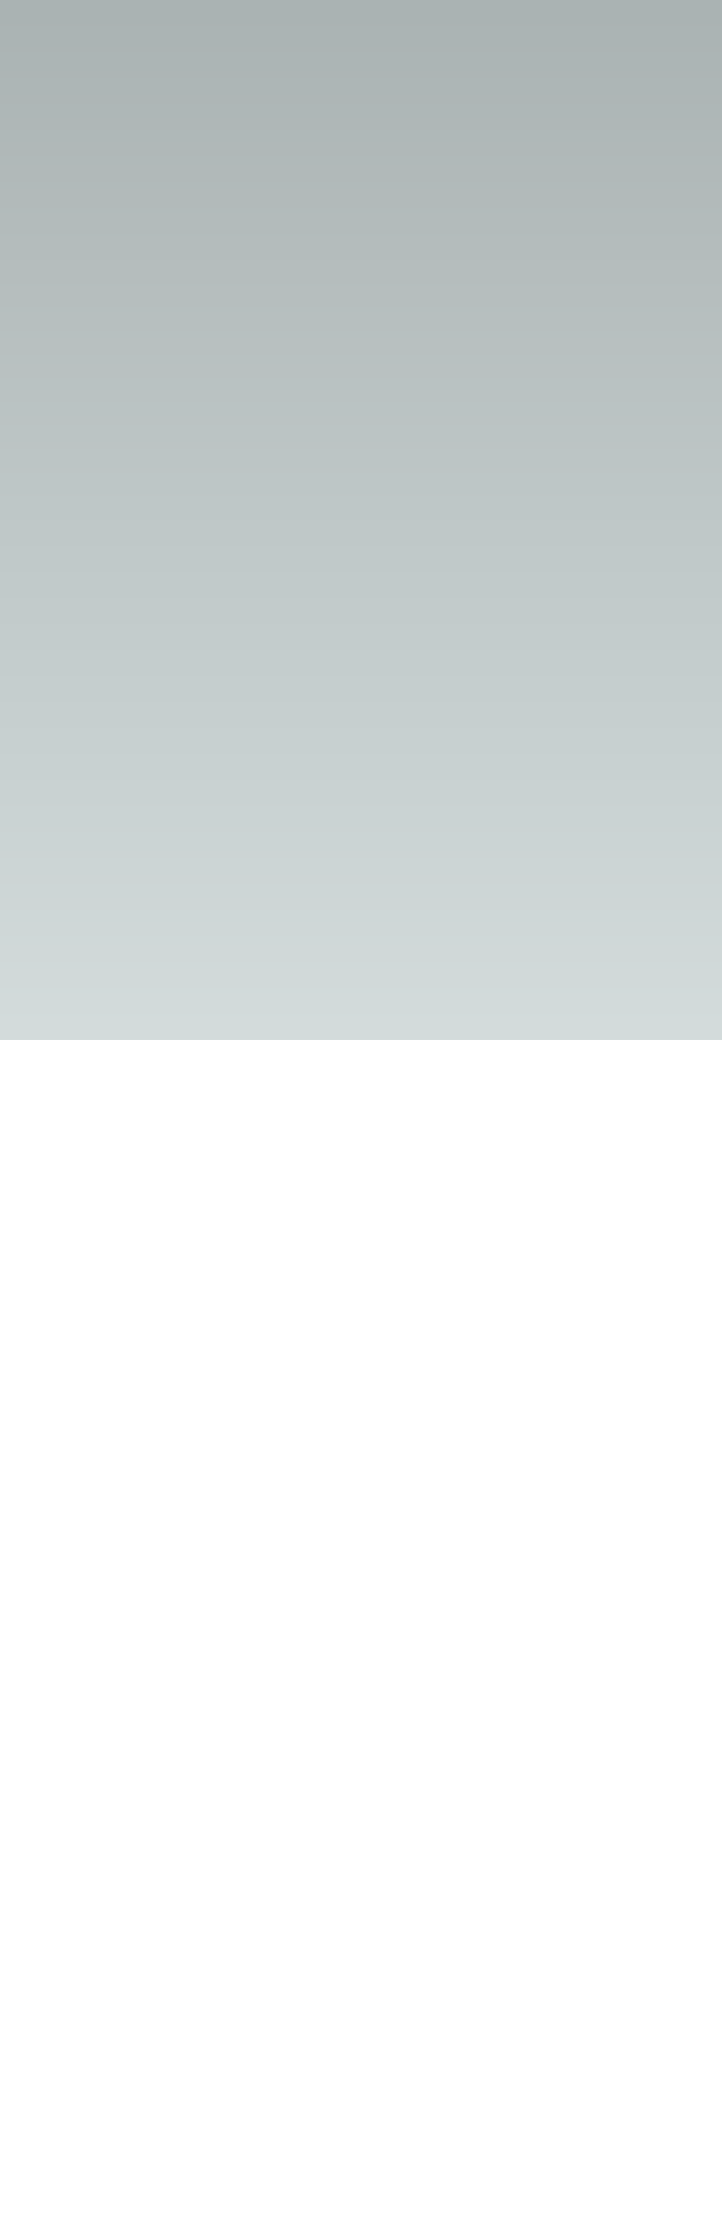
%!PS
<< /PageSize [722 2224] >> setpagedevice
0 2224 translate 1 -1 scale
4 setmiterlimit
1 setgray
0 0 722 2224 rectfill
gsave newpath 0 0 moveto 722 0 lineto 722 1040 lineto 0 1040 lineto closepath clip newpath
<< /ShadingType 2 /ColorSpace /DeviceRGB /Coords [361 0 361 1040] /Extend [true true] /Function << /FunctionType 2 /Domain [0 1] /C0 [0.667 0.702 0.702] /C1 [0.831 0.863 0.863] /N 1 >> >> shfill grestore
showpage
